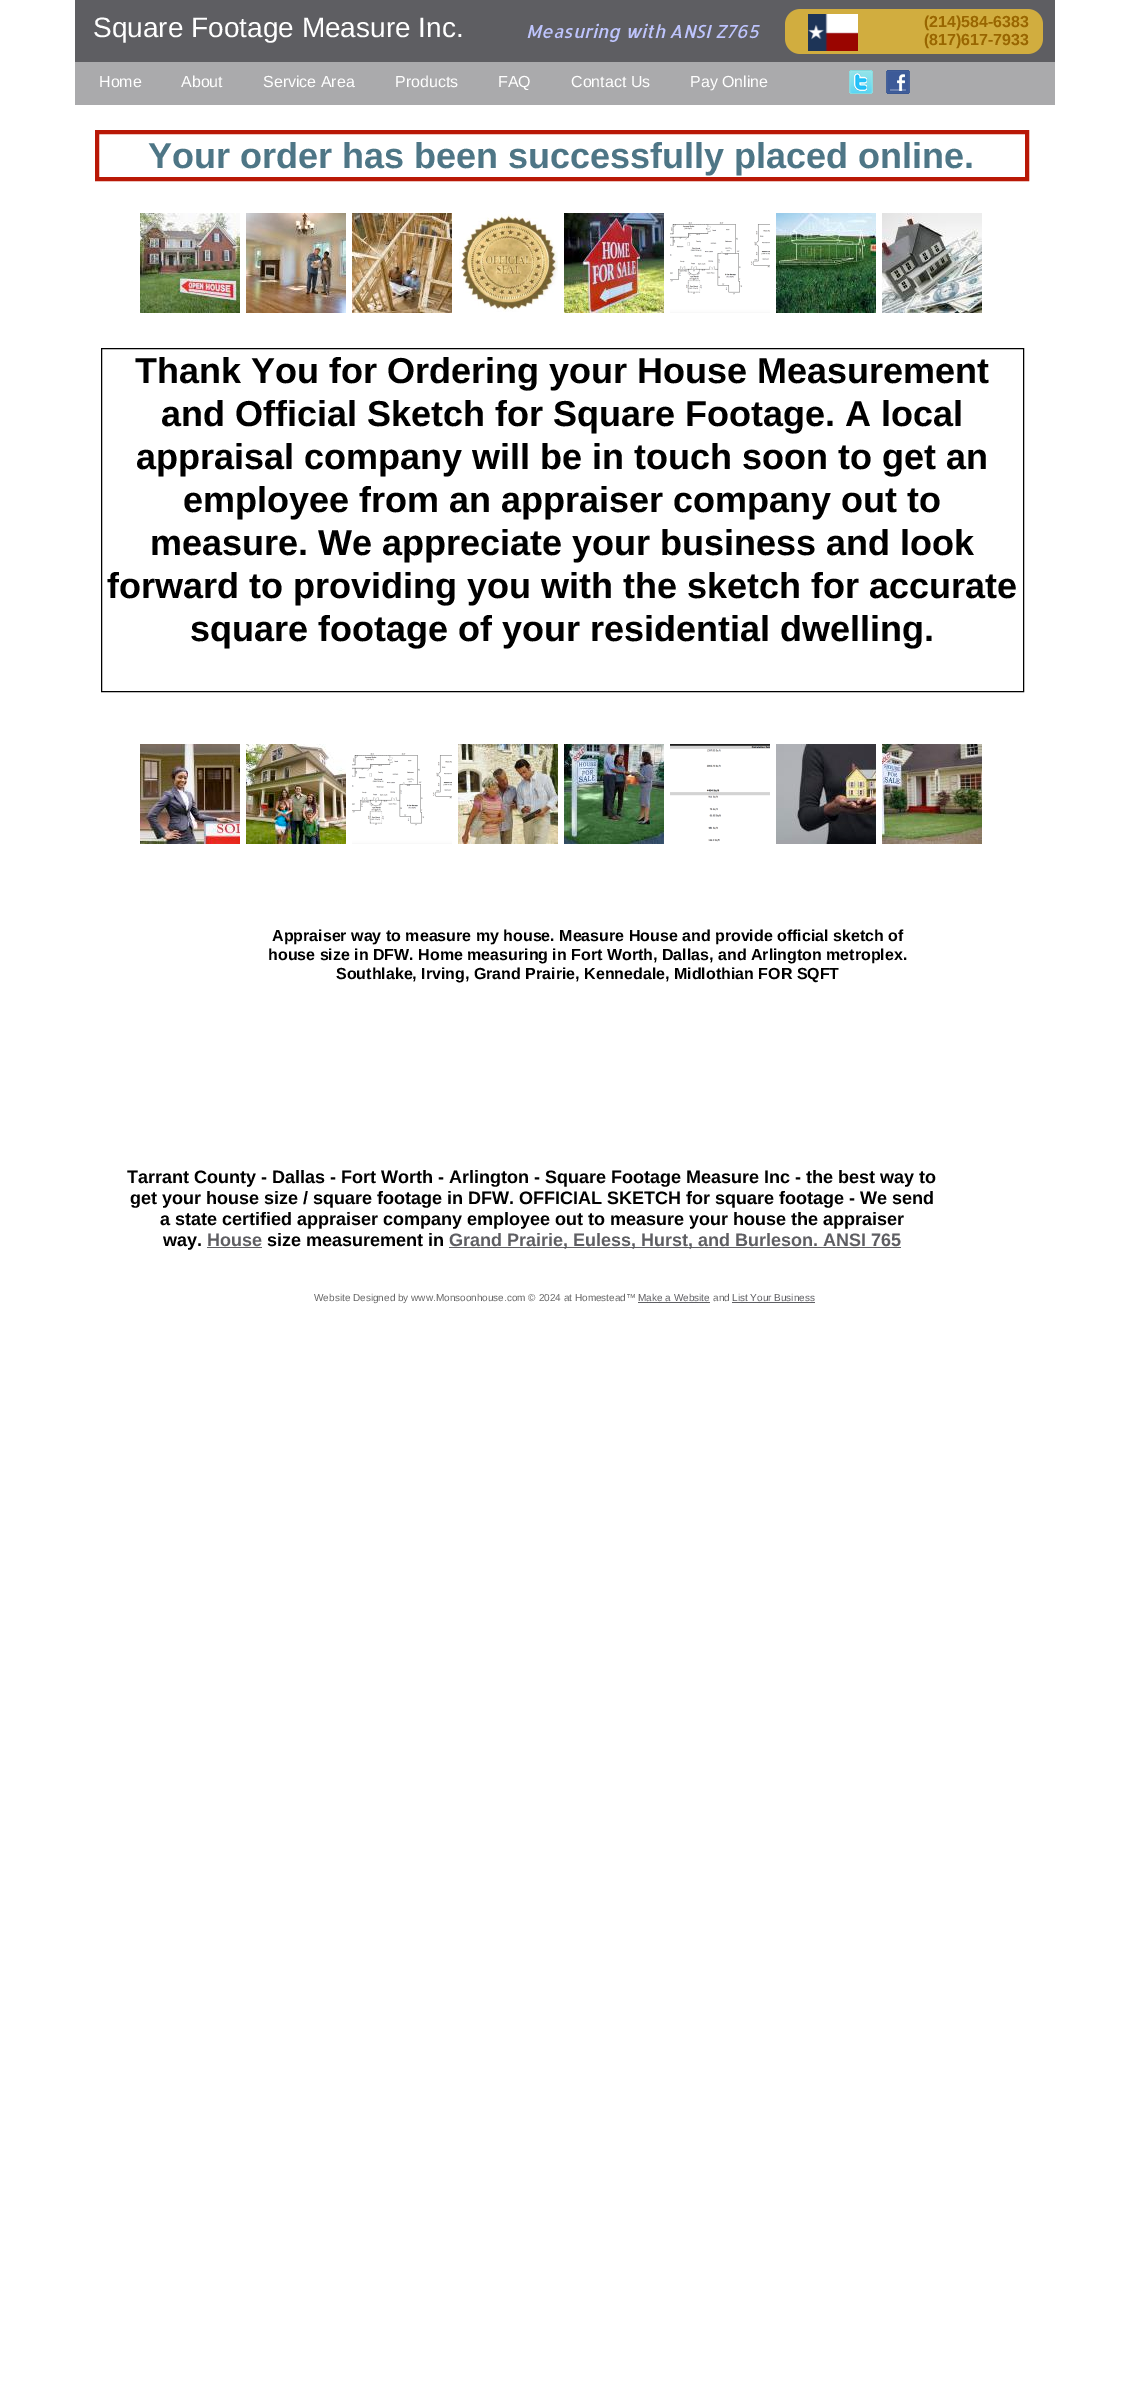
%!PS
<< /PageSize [1129 2393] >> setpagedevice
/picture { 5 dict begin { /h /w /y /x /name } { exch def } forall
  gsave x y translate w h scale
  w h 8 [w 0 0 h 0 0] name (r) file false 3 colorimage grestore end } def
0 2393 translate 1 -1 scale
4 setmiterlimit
1 setgray
0 0 1129 2393 rectfill
0.369 0.369 0.384 setrgbcolor
75 0 980 62 rectfill
(img1.rgb) 785 9 15 15 picture
0.82 0.678 0.247 setrgbcolor
785 24 258 15 rectfill
800 9 228 45 rectfill
(img2.rgb) 1028 9 15 15 picture
(img3.rgb) 785 39 15 15 picture
(img4.rgb) 1028 39 15 15 picture
/LiberationSans-Regular [28 0 0 -28 0 0] selectfont
1 setgray
93 37 moveto (Square Footage Measure Inc.) show
/Allerta-Italic [18 0 0 -18 0 0] selectfont
0.745 0.769 0.992 setrgbcolor
526 38 moveto (Measuring with ANSI Z765) show
(img5.rgb) 808 14 50 37 picture
/LiberationSans-Bold [16 0 0 -16 0 0] selectfont
0.6 0.4 0 setrgbcolor
924 27 moveto (\(214\)584-6383) show
924 45 moveto (\(817\)617-7933) show
0.667 0.667 0.675 setrgbcolor
75 62 980 43 rectfill
/LiberationSans-Regular [16 0 0 -16 0 0] selectfont
1 setgray
99 87 moveto (Home) show
181 87 moveto (About) show
263 87 moveto (Service Area) show
395 87 moveto (Products) show
498 87 moveto (FAQ) show
571 87 moveto (Contact Us) show
690 87 moveto (Pay Online) show
(img6.rgb) 849 70 24 24 picture
(img7.rgb) 886 70 24 24 picture
0.725 0.094 0.024 setrgbcolor
4 setlinewidth
97 132 930 47 rectstroke
/LiberationSans-Bold [36 0 0 -36 0 0] selectfont
0.306 0.463 0.525 setrgbcolor
148 168 moveto (Your order has been successfully placed online.) show
(img8.rgb) 140 213 100 100 picture
(img9.rgb) 246 213 100 100 picture
(img10.rgb) 352 213 100 100 picture
(img11.rgb) 459 214 99 98 picture
(img12.rgb) 564 213 100 100 picture
(img13.rgb) 670 222 100 91 picture
(img14.rgb) 776 213 100 100 picture
(img15.rgb) 882 213 100 100 picture
0 setgray
1 setlinewidth
101.5 348.5 922 343 rectstroke
135 383 moveto (Thank You for Ordering your House Measurement) show
161 426 moveto (and Official Sketch for Square Footage. A local) show
136 469 moveto (appraisal company will be in touch soon to get an) show
183 512 moveto (employee from an appraiser company out to) show
150 555 moveto (measure. We appreciate your business and look) show
107 598 moveto (forward to providing you with the sketch for accurate) show
190 641 moveto (square footage of your residential dwelling.) show
(img16.rgb) 140 744 100 100 picture
(img17.rgb) 246 744 100 100 picture
(img13.rgb) 352 753 100 91 picture
(img18.rgb) 458 744 100 100 picture
(img19.rgb) 564 744 100 100 picture
(img20.rgb) 670 744 100 98 picture
(img21.rgb) 776 744 100 100 picture
(img22.rgb) 882 744 100 100 picture
/LiberationSans-Bold [16 0 0 -16 0 0] selectfont
272 941 moveto (Appraiser way to measure my house. Measure House and provide official sketch of) show
268 960 moveto (house size in DFW. Home measuring in Fort Worth, Dallas, and Arlington metroplex.) show
336 979 moveto (Southlake, Irving, Grand Prairie, Kennedale, Midlothian FOR SQFT) show
/LiberationSans-Bold [18 0 0 -18 0 0] selectfont
127 1183 moveto (Tarrant County - Dallas - Fort Worth - Arlington - Square Footage Measure Inc - the best way to) show
130 1204 moveto (get your house size / square footage in DFW. OFFICIAL SKETCH for square footage - We send) show
160 1225 moveto (a state certified appraiser company employee out to measure your house the appraiser) show
163 1246 moveto (way.) show
0.369 0.369 0.384 setrgbcolor
207 1246 moveto (House) show
207 1247 55 1 rectfill
0 setgray
267 1246 moveto (size measurement in) show
0.369 0.369 0.384 setrgbcolor
449 1247 452 1 rectfill
449 1246 moveto (Grand Prairie, Euless, Hurst, and Burleson. ANSI 765) show
/LiberationSans-Regular [10 0 0 -10 0 0] selectfont
0.4 setgray
314 1301 moveto (Website Designed by www.Monsoonhouse.com © 2024 at Homestead™) show
0.369 0.369 0.384 setrgbcolor
638 1301 moveto (Make a Website) show
638 1302 72 1 rectfill
0.4 setgray
713 1301 moveto (and) show
0.369 0.369 0.384 setrgbcolor
732 1301 moveto (List Your Business) show
732 1302 83 1 rectfill
showpage
